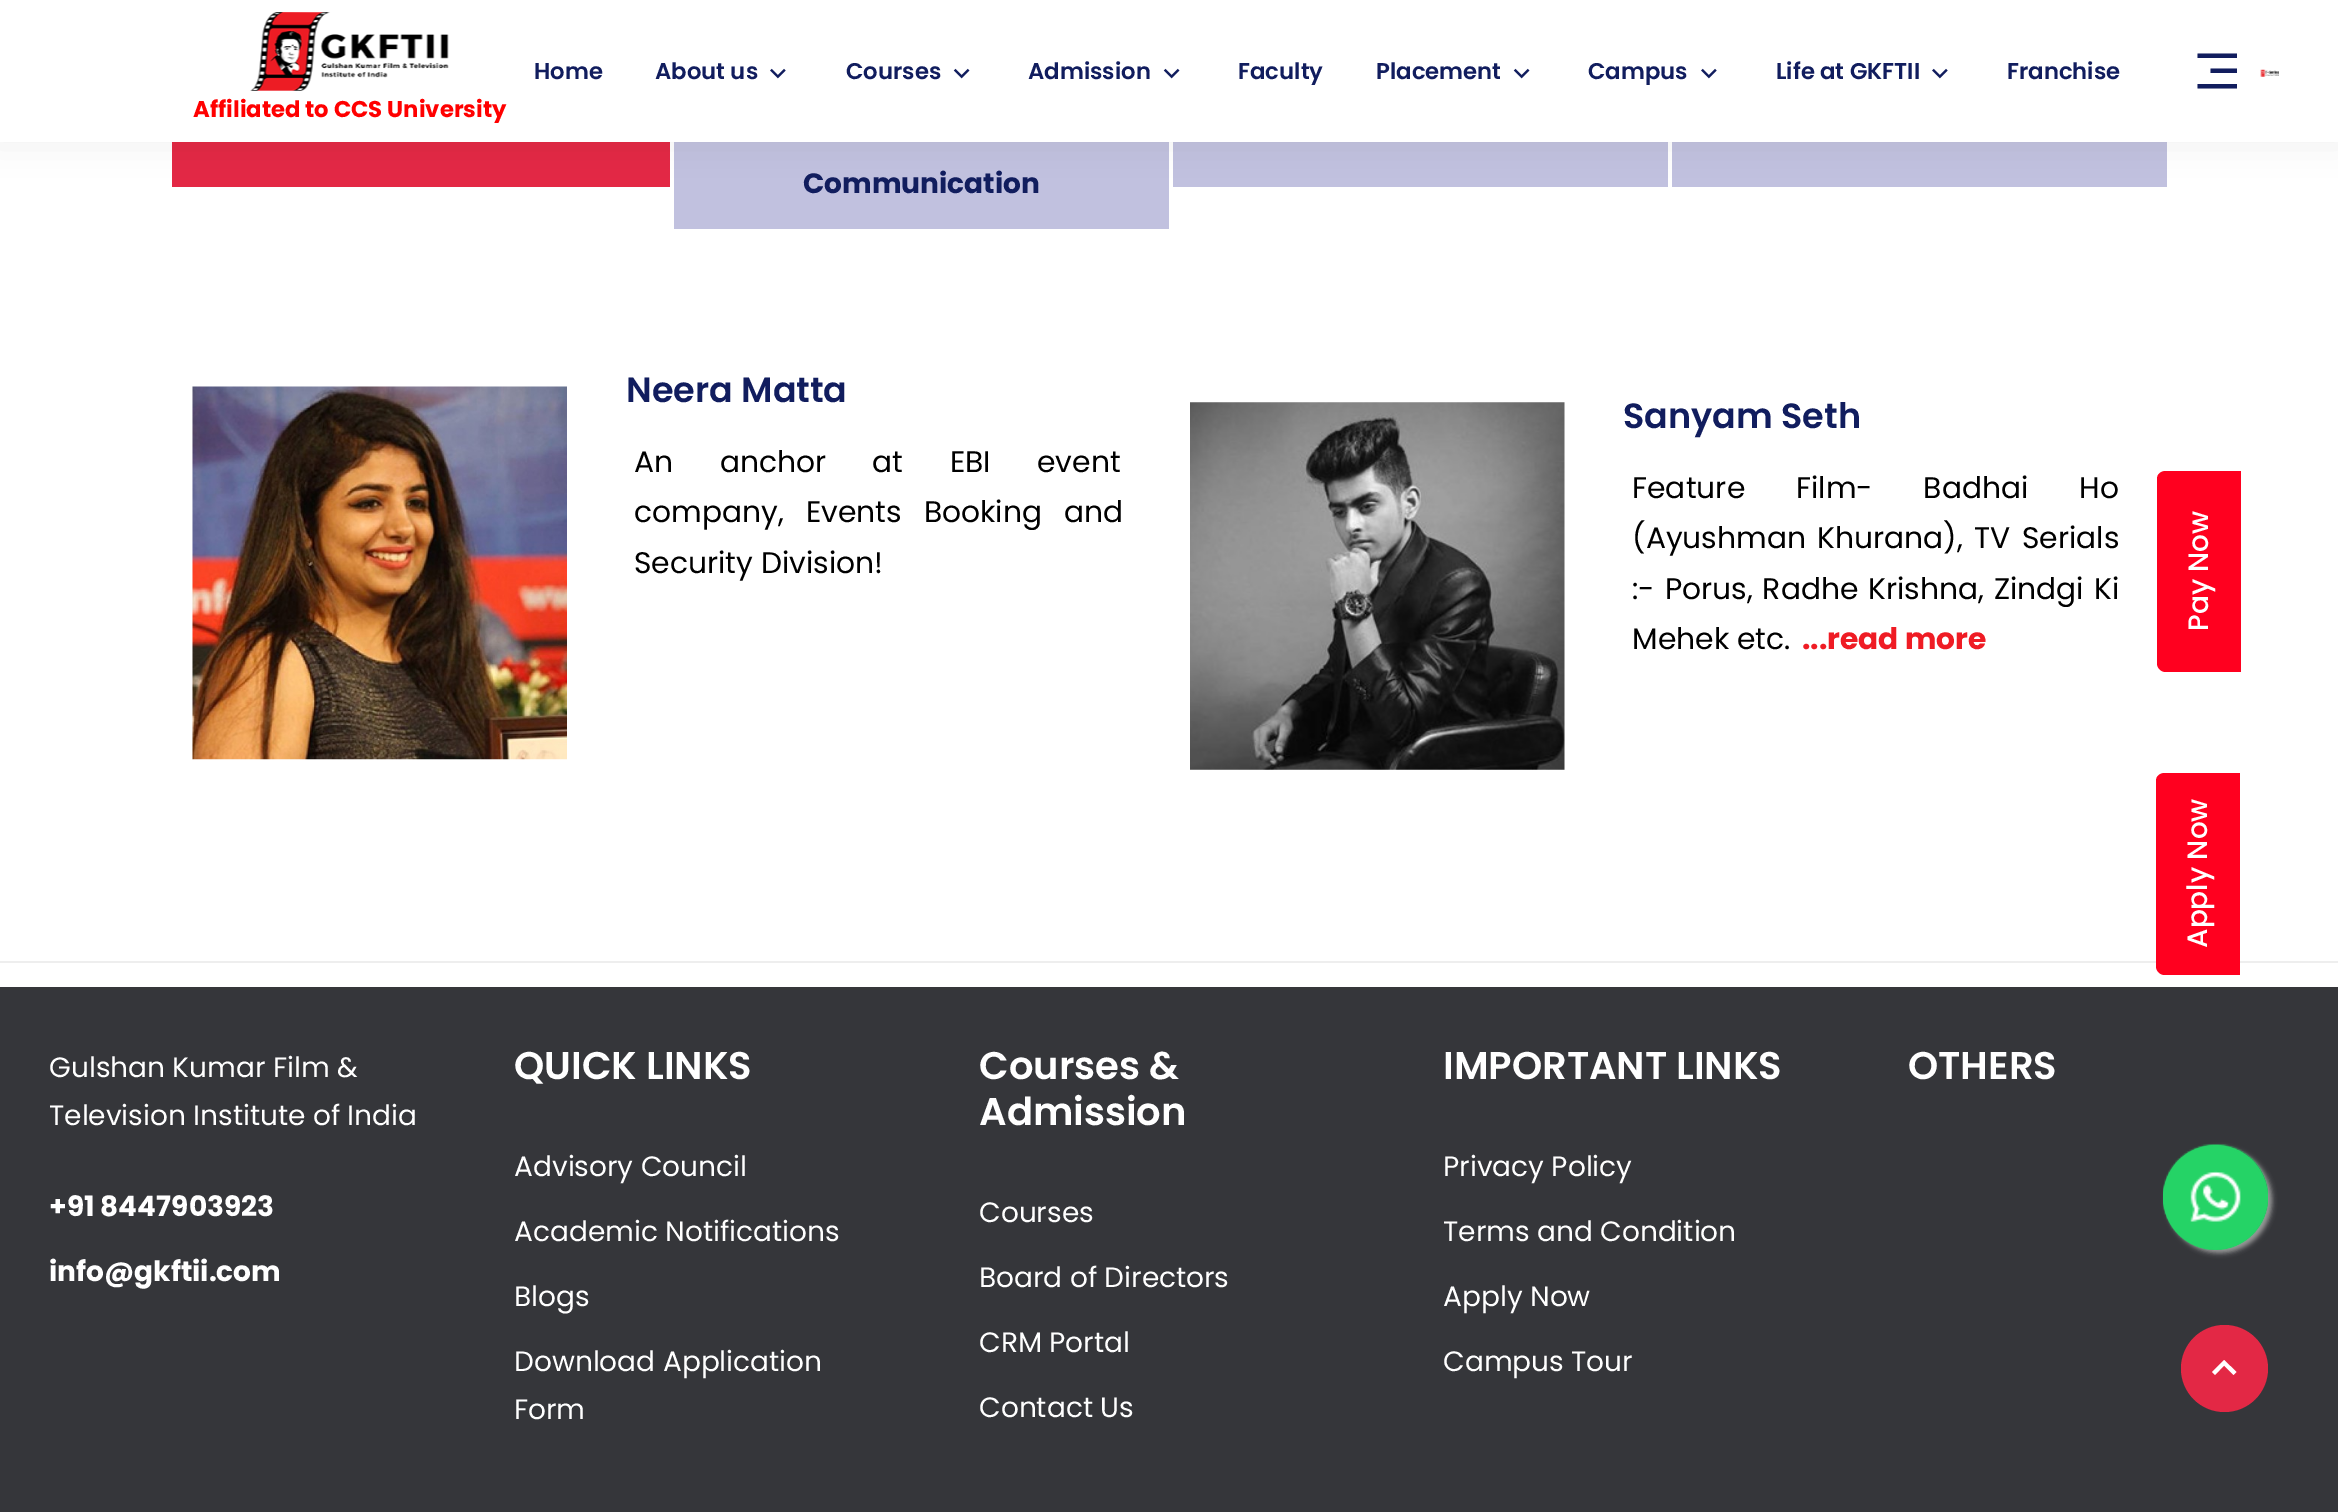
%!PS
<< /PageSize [2338 1512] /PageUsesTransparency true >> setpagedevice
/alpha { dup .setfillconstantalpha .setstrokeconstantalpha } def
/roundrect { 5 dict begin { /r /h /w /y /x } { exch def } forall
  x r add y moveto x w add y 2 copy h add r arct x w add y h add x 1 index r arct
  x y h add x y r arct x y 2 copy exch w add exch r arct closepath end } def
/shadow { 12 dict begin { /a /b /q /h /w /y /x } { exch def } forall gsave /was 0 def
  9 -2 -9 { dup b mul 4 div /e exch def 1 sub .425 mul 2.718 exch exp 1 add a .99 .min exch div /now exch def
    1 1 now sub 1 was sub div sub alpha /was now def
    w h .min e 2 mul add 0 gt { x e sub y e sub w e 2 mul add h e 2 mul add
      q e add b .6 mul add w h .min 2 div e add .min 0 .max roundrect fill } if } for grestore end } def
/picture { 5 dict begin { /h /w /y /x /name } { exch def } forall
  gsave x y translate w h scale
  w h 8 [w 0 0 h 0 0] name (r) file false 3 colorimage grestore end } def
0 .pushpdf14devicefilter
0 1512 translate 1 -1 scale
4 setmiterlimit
1 setgray
0 0 2338 1512 rectfill
0.89 0.157 0.271 setrgbcolor
172 142 498 45 rectfill
0.757 0.757 0.875 setrgbcolor
674 142 495 87 rectfill
1173 142 495 45 rectfill
1672 142 495 45 rectfill
0 setgray
-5 -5 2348 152 0 17.5 0.05 shadow
1 setgray
0 0 2338 142 rectfill
/Poppins-SemiBold [22.75 0 0 -22.75 0 0] selectfont
0.067 0.114 0.369 setrgbcolor
534 79 moveto (Home) show
655 79 moveto (About us) show
(img1.rgb) 770 68 16 11 picture
846 79 moveto (Courses) show
(img2.rgb) 953 68 17 11 picture
1028 79 moveto (Admission) show
(img2.rgb) 1163 68 17 11 picture
1238 79 moveto (Faculty) show
1376 79 moveto (Placement) show
(img2.rgb) 1513 68 17 11 picture
1588 79 moveto (Campus) show
(img1.rgb) 1701 68 16 11 picture
1776 79 moveto (Life at GKFTII) show
(img1.rgb) 1932 68 16 11 picture
2007 79 moveto (Franchise) show
newpath 2197.5 53.5 moveto 2237 53.5 lineto 2237 58 lineto 2197.5 58 lineto closepath 2210.5 68.5 moveto 2237 68.5 lineto 2237 73 lineto 2210.5 73 lineto closepath 2197.5 84 moveto 2237 84 lineto 2237 88.5 lineto 2197.5 88.5 lineto closepath fill
(img3.rgb) 2260 69 19 8 picture
(img4.rgb) 250 12 199 79 picture
/Poppins-Bold [22.75 0 0 -22.75 0 0] selectfont
1 0 0 setrgbcolor
193 117 moveto (Affiliated to CCS University) show
0.933 setgray
0 961 2338 2 rectfill
/Poppins-Bold [28 0 0 -28 0 0] selectfont
0.067 0.114 0.369 setrgbcolor
803 193 moveto (Communication) show
(img5.rgb) 192 386 375 374 picture
/Poppins-SemiBold [35 0 0 -35 0 0] selectfont
626 402 moveto (Neera Matta) show
/Poppins-Regular [29.75 0 0 -29.75 0 0] selectfont
0 setgray
634 472 moveto 38.5 0 32 (An anchor at EBI event) widthshow
634 522 moveto (company,) show
806 522 moveto 14 0 32 (Events Booking and) widthshow
634 573 moveto (Security Division!) show
(img6.rgb) 1190 402 375 368 picture
/Poppins-SemiBold [35 0 0 -35 0 0] selectfont
0.067 0.114 0.369 setrgbcolor
1623 428 moveto (Sanyam Seth) show
/Poppins-Regular [29.75 0 0 -29.75 0 0] selectfont
0 setgray
1632 498 moveto 43 0 32 (Feature Film- Badhai Ho) widthshow
1632 548 moveto 3.5 0 32 (\(Ayushman Khurana\), TV Serials) widthshow
1632 599 moveto 2 0 32 (:- Porus, Radhe) widthshow
1868 599 moveto 2 0 32 (Krishna, Zindgi Ki) widthshow
1632 649 moveto (Mehek etc.) show
/Poppins-Bold [29.75 0 0 -29.75 0 0] selectfont
0.937 0.11 0.141 setrgbcolor
1802 649 moveto (...read more) show
1 0 0.122 setrgbcolor
newpath 2157 663 moveto 2157 479 lineto 2157 474 2161 471 2166 471 curveto 2241 471 lineto 2241 672 lineto 2166 672 lineto 2161 672 2157 668 2157 663 curveto closepath fill
0.1 alpha
newpath 2157 663 moveto 2157 479 lineto 2157 474 2161 471 2166 471 curveto 2232 471 lineto 2232 672 lineto 2166 672 lineto 2161 672 2157 668 2157 663 curveto closepath fill
/Poppins-Medium [28 0 0 -28 0 0] selectfont
1 alpha
1 setgray
gsave 2208 631 translate -90 rotate 0 0 moveto (Pay Now) show grestore
1 0 0.122 setrgbcolor
newpath 2156 966 moveto 2156 781 lineto 2156 776 2160 773 2165 773 curveto 2240 773 lineto 2240 975 lineto 2165 975 lineto 2160 975 2156 971 2156 966 curveto closepath fill
0.1 alpha
newpath 2156 966 moveto 2156 781 lineto 2156 776 2160 773 2165 773 curveto 2232 773 lineto 2232 975 lineto 2165 975 lineto 2160 975 2156 971 2156 966 curveto closepath fill
1 alpha
1 setgray
gsave 2207 948 translate -90 rotate 0 0 moveto (Apply Now) show grestore
0.208 0.212 0.227 setrgbcolor
0 987 2338 525 rectfill
/Poppins-Regular [28 0 0 -28 0 0] selectfont
1 setgray
49 1077 moveto (Gulshan Kumar Film &) show
49 1125 moveto (Television Institute of India) show
/Poppins-Bold [28 0 0 -28 0 0] selectfont
49 1216 moveto (+91 8447903923) show
49 1281 moveto (info@gkftii.com) show
/Poppins-SemiBold [38.5 0 0 -38.5 0 0] selectfont
514 1079 moveto (QUICK LINKS) show
/Poppins-Regular [28 0 0 -28 0 0] selectfont
514 1176 moveto (Advisory Council) show
514 1241 moveto (Academic Notifications) show
514 1306 moveto (Blogs) show
514 1371 moveto (Download Application) show
514 1419 moveto (Form) show
/Poppins-SemiBold [38.5 0 0 -38.5 0 0] selectfont
979 1079 moveto (Courses &) show
979 1125 moveto (Admission) show
/Poppins-Regular [28 0 0 -28 0 0] selectfont
979 1222 moveto (Courses) show
979 1287 moveto (Board of Directors) show
979 1352 moveto (CRM Portal) show
979 1417 moveto (Contact Us) show
/Poppins-SemiBold [38.5 0 0 -38.5 0 0] selectfont
1443 1079 moveto (IMPORTANT LINKS) show
/Poppins-Regular [28 0 0 -28 0 0] selectfont
1443 1176 moveto (Privacy Policy) show
1443 1241 moveto (Terms and Condition) show
1443 1306 moveto (Apply Now) show
1443 1371 moveto (Campus Tour) show
/Poppins-SemiBold [38.5 0 0 -38.5 0 0] selectfont
1908 1079 moveto (OTHERS) show
0.6 setgray
2167 1148 105 105 52.5 2.5 1 shadow
0.145 0.827 0.4 setrgbcolor
newpath 2215.5 1197.5 52.5 0 360 arc closepath fill
(img7.rgb) 2163 1144 105 106 picture
0.89 0.157 0.271 setrgbcolor
newpath 2224.5 1368.5 43.5 0 360 arc closepath fill
1 setgray
newpath 2224 1365.5 moveto 2215 1375 lineto 2212 1372 lineto 2224 1360 lineto 2236.5 1372 lineto 2233.5 1375 lineto closepath fill
.poppdf14devicefilter showpage
